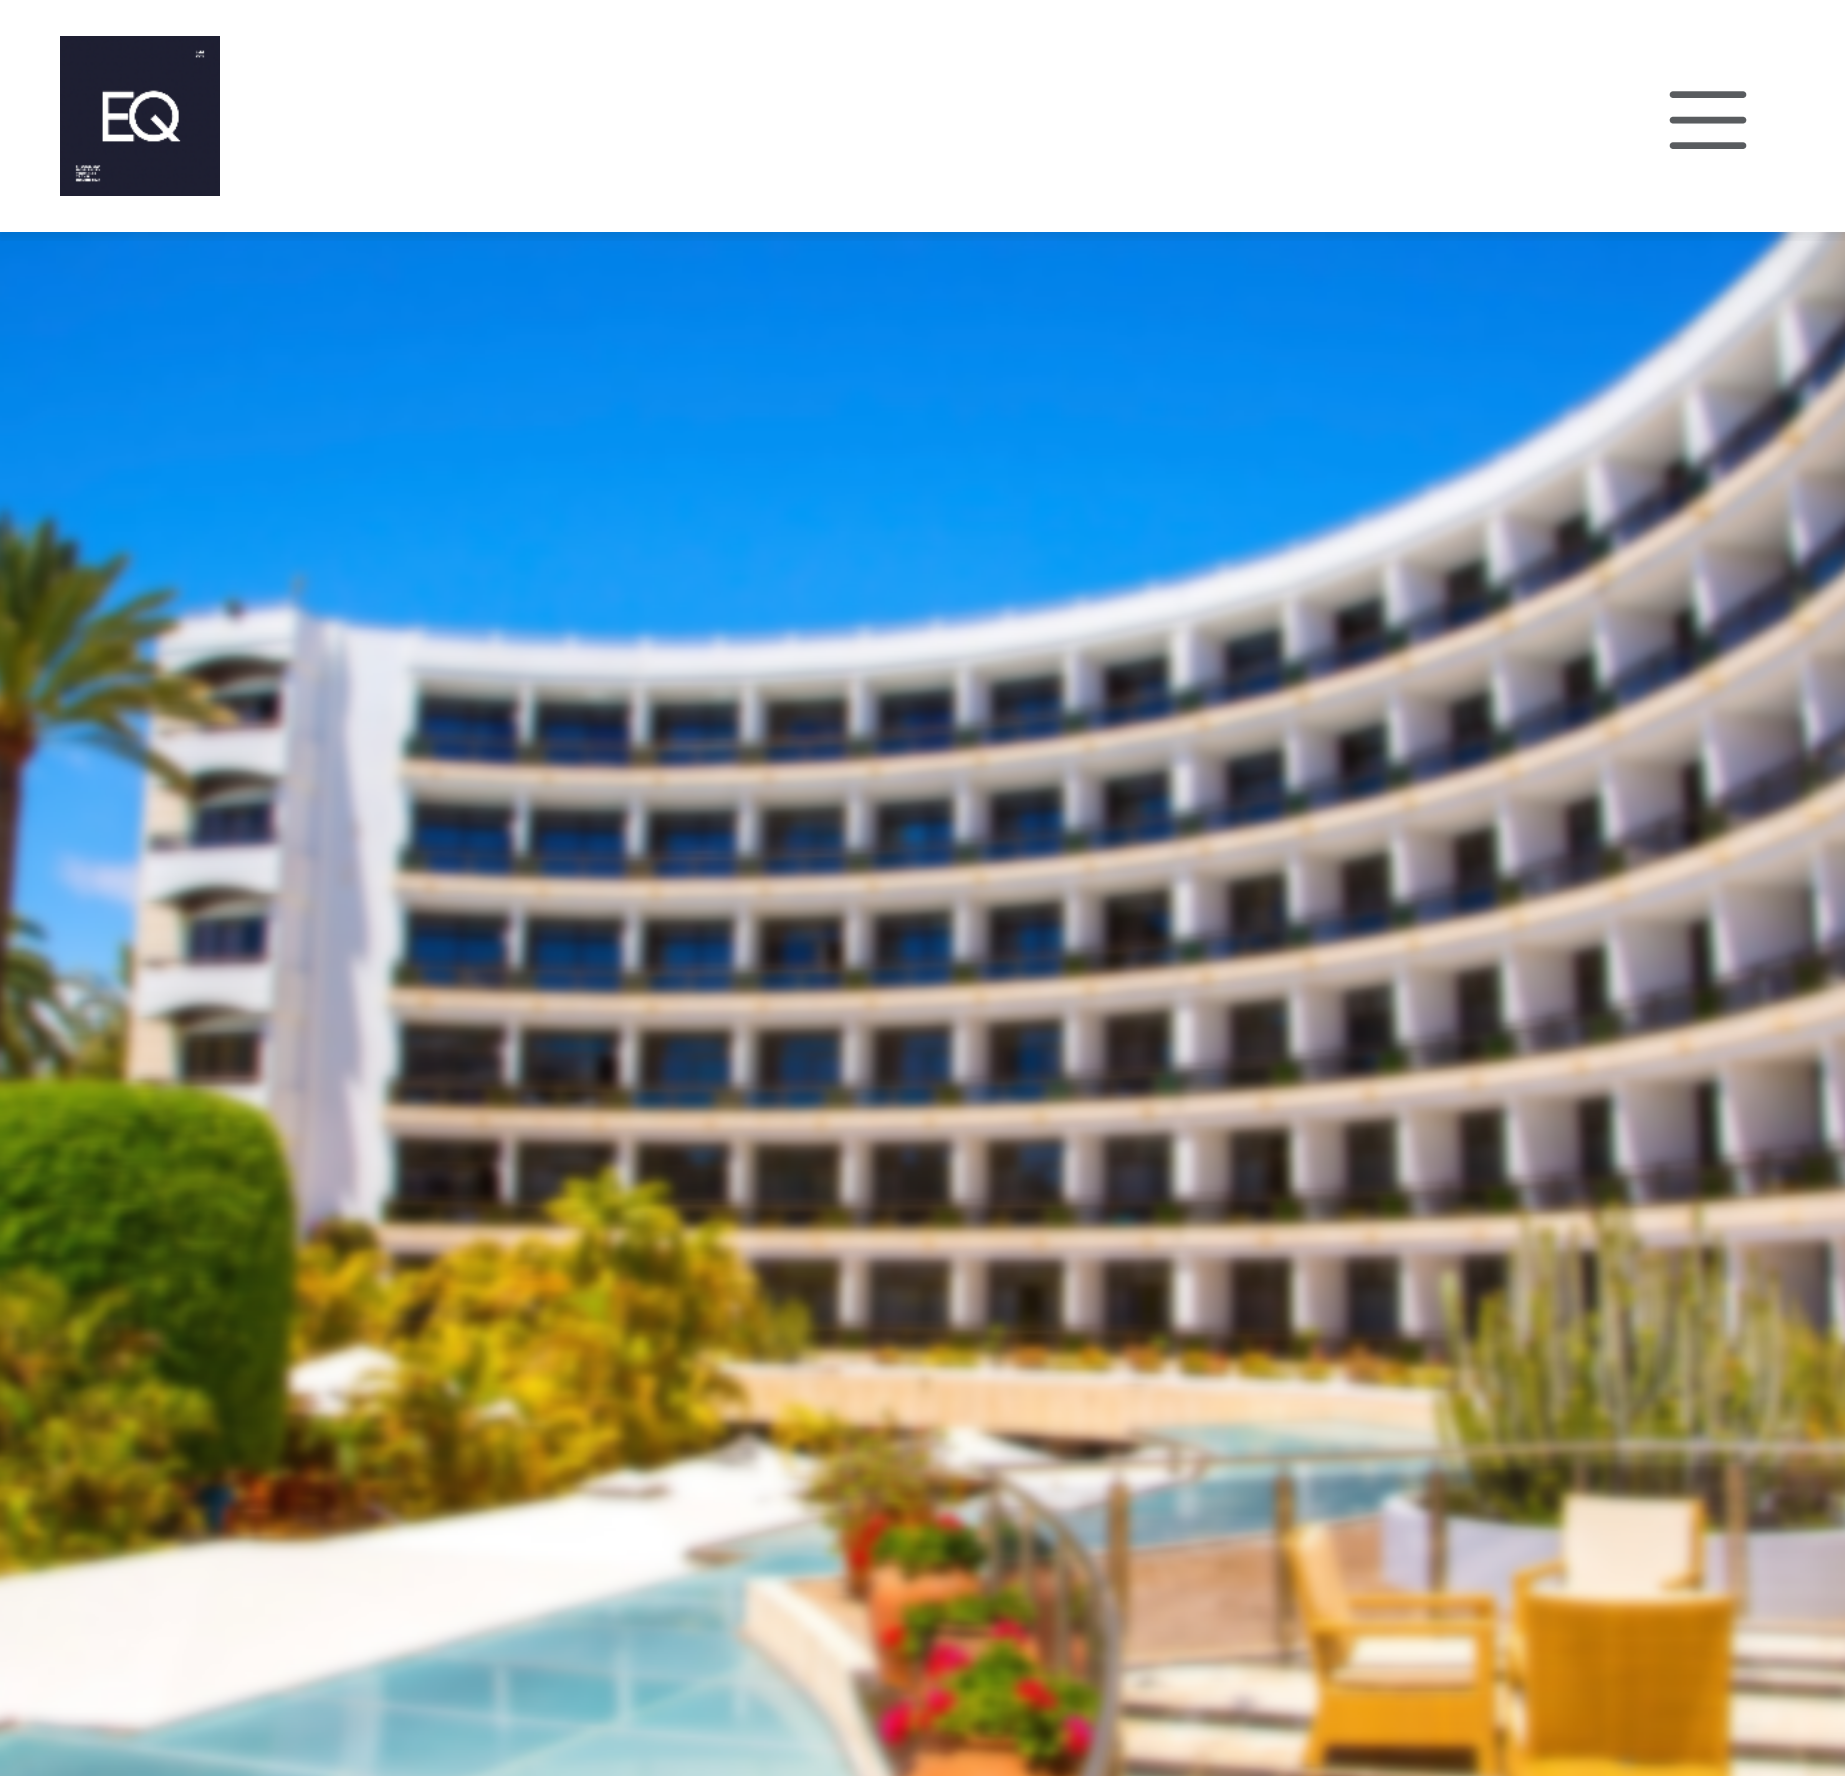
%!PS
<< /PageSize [1845 1776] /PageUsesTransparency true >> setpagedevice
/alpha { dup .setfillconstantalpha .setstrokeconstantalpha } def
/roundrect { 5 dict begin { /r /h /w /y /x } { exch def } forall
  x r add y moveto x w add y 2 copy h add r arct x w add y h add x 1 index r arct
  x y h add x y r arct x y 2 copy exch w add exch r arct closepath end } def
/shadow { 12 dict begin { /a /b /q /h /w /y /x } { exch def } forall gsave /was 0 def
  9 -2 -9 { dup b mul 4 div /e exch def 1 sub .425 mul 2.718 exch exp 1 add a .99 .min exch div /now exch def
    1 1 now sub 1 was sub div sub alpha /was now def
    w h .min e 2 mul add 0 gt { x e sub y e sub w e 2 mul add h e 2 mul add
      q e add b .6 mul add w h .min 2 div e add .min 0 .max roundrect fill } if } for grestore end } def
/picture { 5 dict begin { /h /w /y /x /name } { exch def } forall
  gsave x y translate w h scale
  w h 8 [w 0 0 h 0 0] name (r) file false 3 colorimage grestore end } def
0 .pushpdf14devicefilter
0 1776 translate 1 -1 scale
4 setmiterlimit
1 setgray
0 0 1845 1776 rectfill
(img2.rgb) 0 232 1845 1544 picture
gsave
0 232 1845 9 rectclip
0 setgray
0 4 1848 232 0 6 0.1 shadow
grestore
(img1.rgb) 60 36 160 160 picture
0.349 0.361 0.373 setrgbcolor
6.4 setlinewidth
1 setlinecap
newpath 1673 94.5 moveto 1743 94.5 lineto 1673 120 moveto 1743 120 lineto 1673 145.5 moveto 1743 145.5 lineto stroke
.poppdf14devicefilter showpage
